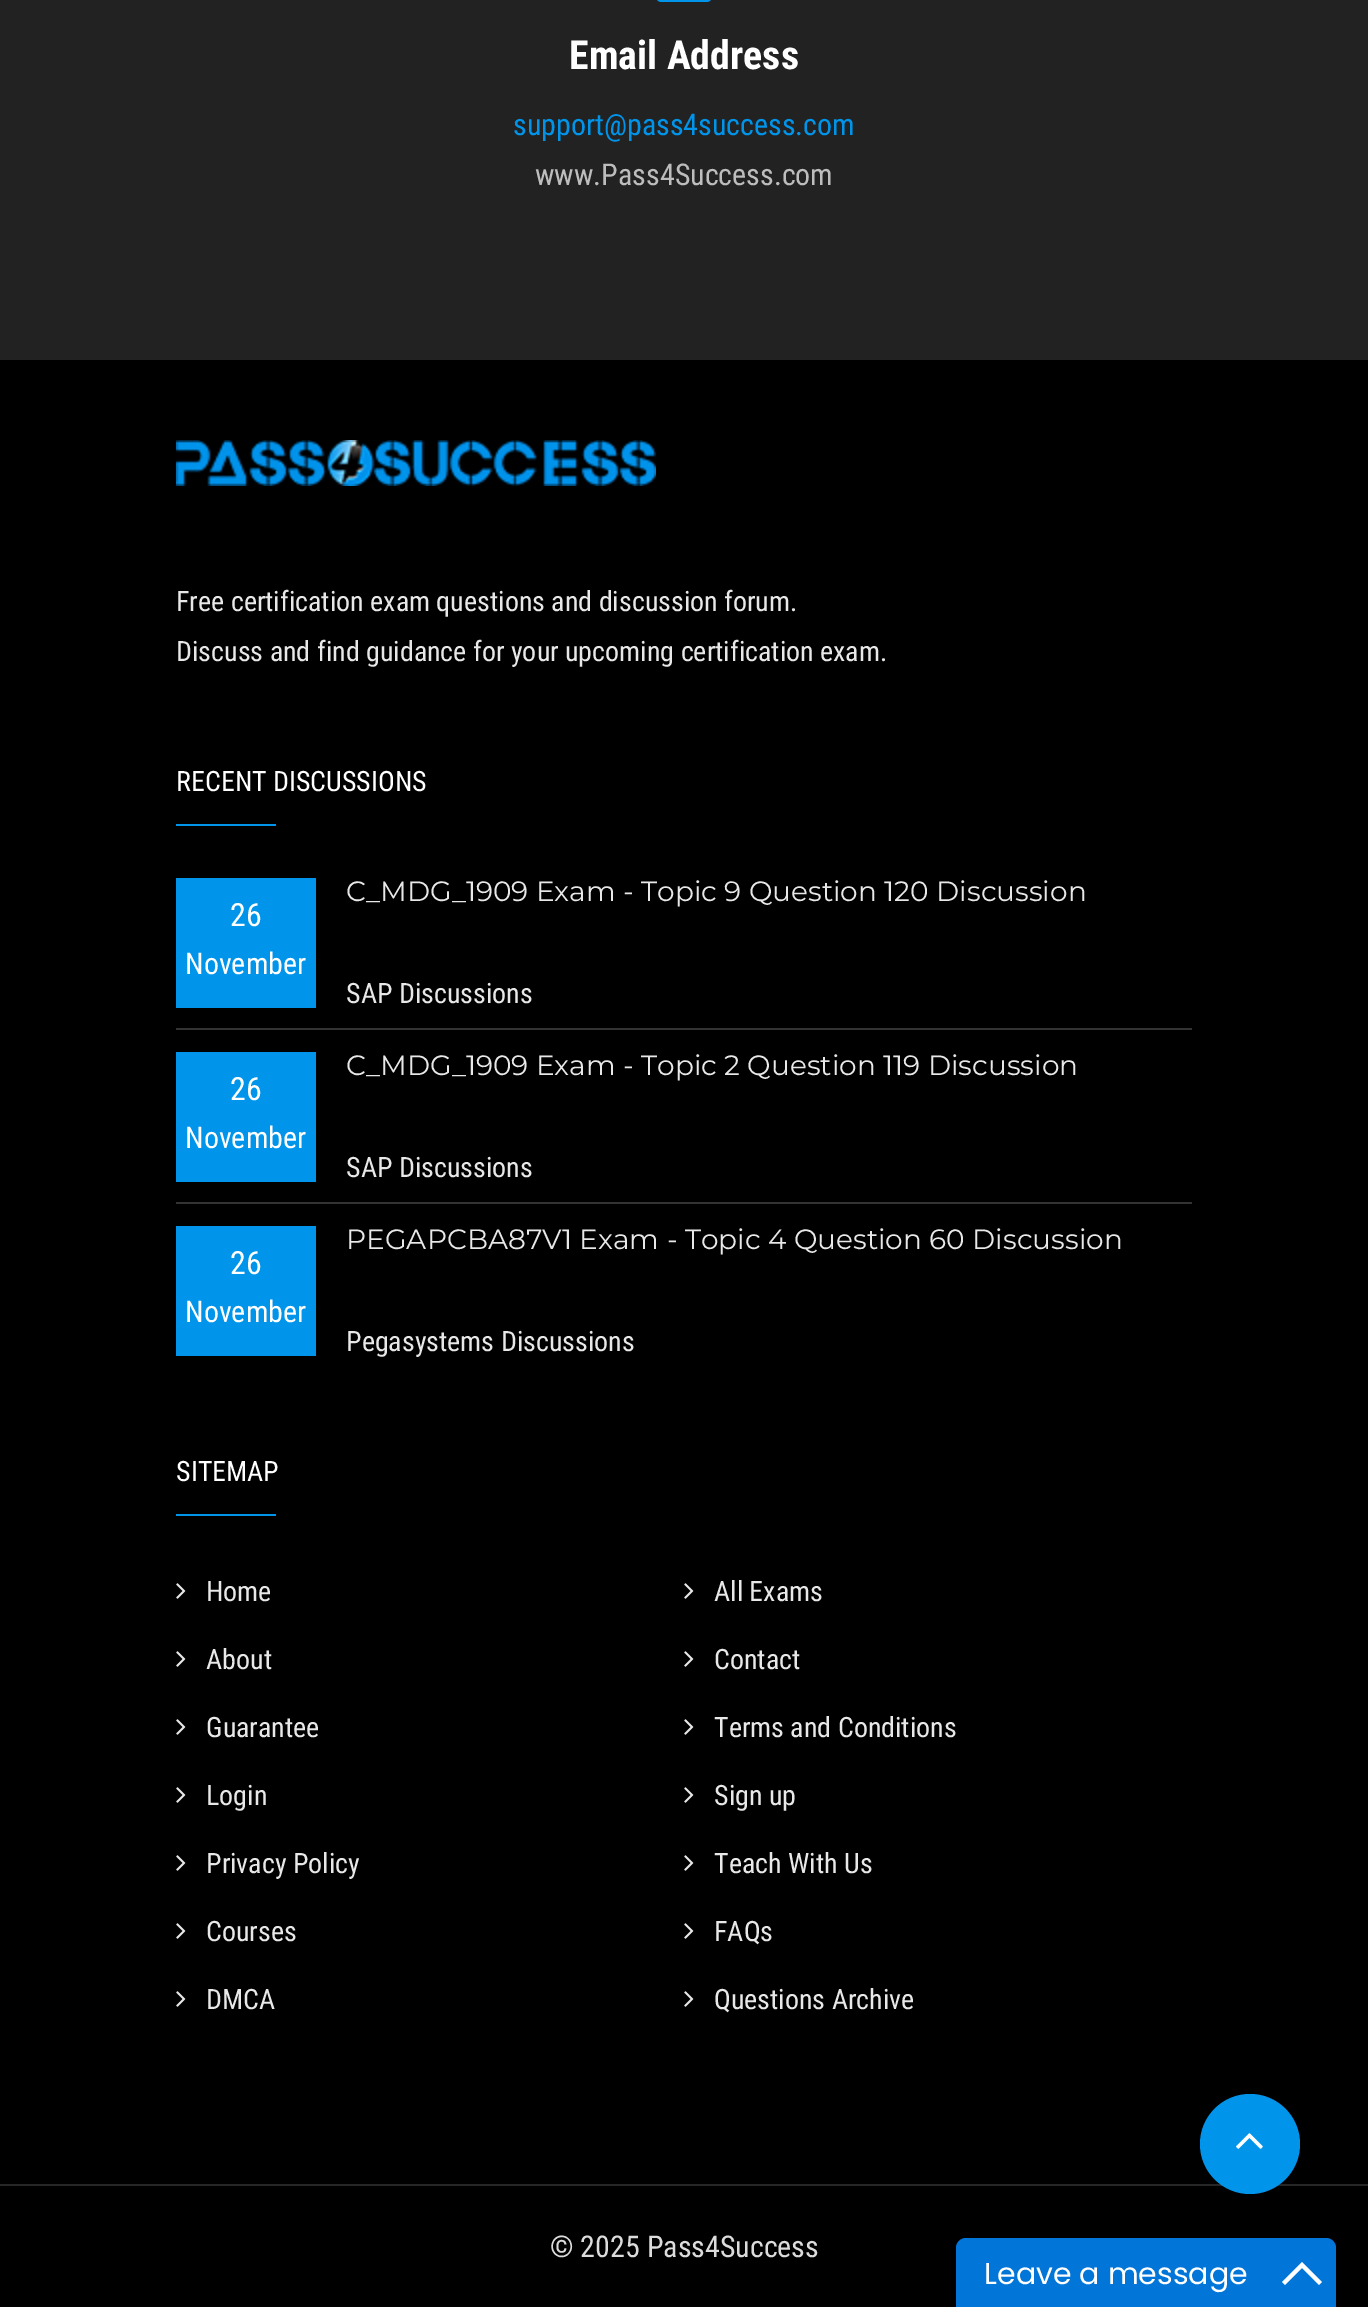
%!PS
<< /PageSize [1368 2307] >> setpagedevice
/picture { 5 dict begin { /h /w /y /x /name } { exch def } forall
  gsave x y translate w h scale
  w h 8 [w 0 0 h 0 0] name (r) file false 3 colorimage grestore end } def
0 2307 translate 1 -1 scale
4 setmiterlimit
0 setgray
0 0 1368 2307 rectfill
0.133 setgray
0 0 1368 360 rectfill
(img1.rgb) 657 0 54 2 picture
/RobotoCondensed-Bold [40 0 0 -40 0 0] selectfont
1 setgray
569 69 moveto (Email Address) show
/RobotoCondensed-Regular [30 0 0 -30 0 0] selectfont
0 0.584 0.922 setrgbcolor
513 135 moveto (support@pass4success.com) show
0.741 setgray
535 185 moveto (www.Pass4Success.com) show
(img2.rgb) 176 440 480 46 picture
/RobotoCondensed-Regular [28 0 0 -28 0 0] selectfont
0.91 setgray
176 611 moveto (Free certification exam questions and discussion forum.) show
176 661 moveto (Discuss and find guidance for your upcoming certification exam.) show
1 setgray
176 791 moveto (RECENT DISCUSSIONS) show
0 0.584 0.922 setrgbcolor
176 824 100 2 rectfill
176 878 140 130 rectfill
/RobotoCondensed-Regular [32 0 0 -32 0 0] selectfont
1 setgray
230 926 moveto (26) show
/RobotoCondensed-Regular [30 0 0 -30 0 0] selectfont
185 974 moveto (November) show
/Montserrat-Regular [28 0 0 -28 0 0] selectfont
0.91 setgray
346 901 moveto (C_MDG_1909 Exam - Topic 9 Question 120 Discussion) show
/RobotoCondensed-Regular [28 0 0 -28 0 0] selectfont
346 1003 moveto (SAP Discussions) show
0.2 setgray
176 1028 1016 2 rectfill
0 0.584 0.922 setrgbcolor
176 1052 140 130 rectfill
/RobotoCondensed-Regular [32 0 0 -32 0 0] selectfont
1 setgray
230 1100 moveto (26) show
/RobotoCondensed-Regular [30 0 0 -30 0 0] selectfont
185 1148 moveto (November) show
/Montserrat-Regular [28 0 0 -28 0 0] selectfont
0.91 setgray
346 1075 moveto (C_MDG_1909 Exam - Topic 2 Question 119 Discussion) show
/RobotoCondensed-Regular [28 0 0 -28 0 0] selectfont
346 1177 moveto (SAP Discussions) show
0.2 setgray
176 1202 1016 2 rectfill
0 0.584 0.922 setrgbcolor
176 1226 140 130 rectfill
/RobotoCondensed-Regular [32 0 0 -32 0 0] selectfont
1 setgray
230 1274 moveto (26) show
/RobotoCondensed-Regular [30 0 0 -30 0 0] selectfont
185 1322 moveto (November) show
/Montserrat-Regular [28 0 0 -28 0 0] selectfont
0.91 setgray
346 1249 moveto (PEGAPCBA87V1 Exam - Topic 4 Question 60 Discussion) show
/RobotoCondensed-Regular [28 0 0 -28 0 0] selectfont
346 1351 moveto (Pegasystems Discussions) show
1 setgray
176 1481 moveto (SITEMAP) show
0 0.584 0.922 setrgbcolor
176 1514 100 2 rectfill
(img3.rgb) 176 1583 10 16 picture
0.91 setgray
206 1601 moveto (Home) show
(img3.rgb) 684 1583 10 16 picture
714 1601 moveto (All Exams) show
(img3.rgb) 176 1651 10 16 picture
206 1669 moveto (About) show
(img3.rgb) 684 1651 10 16 picture
714 1669 moveto (Contact) show
(img3.rgb) 176 1719 10 16 picture
206 1737 moveto (Guarantee) show
(img3.rgb) 684 1719 10 16 picture
714 1737 moveto (Terms and Conditions) show
(img3.rgb) 176 1787 10 16 picture
206 1805 moveto (Login) show
(img3.rgb) 684 1787 10 16 picture
714 1805 moveto (Sign up) show
(img3.rgb) 176 1855 10 16 picture
206 1873 moveto (Privacy Policy) show
(img3.rgb) 684 1855 10 16 picture
714 1873 moveto (Teach With Us) show
(img3.rgb) 176 1923 10 16 picture
206 1941 moveto (Courses) show
(img3.rgb) 684 1923 10 16 picture
714 1941 moveto (FAQs) show
(img3.rgb) 176 1991 10 16 picture
206 2009 moveto (DMCA) show
(img3.rgb) 684 1991 10 16 picture
714 2009 moveto (Questions Archive) show
0.149 setgray
0 2184 1368 2 rectfill
/RobotoCondensed-Regular [30 0 0 -30 0 0] selectfont
0.863 setgray
550 2257 moveto (© 2025 Pass4Success) show
0 0.584 0.922 setrgbcolor
newpath 1250 2144 50 0 360 arc closepath fill
(img4.rgb) 1236 2133 27 16 picture
0.008 0.459 0.847 setrgbcolor
newpath 966 2238 moveto 1326 2238 lineto 1331.5 2238 1336 2242.5 1336 2248 curveto 1336 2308 lineto 956 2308 lineto 956 2248 lineto 956 2242.5 960.5 2238 966 2238 curveto closepath fill
/Poppins-Regular [30 0 0 -30 0 0] selectfont
1 setgray
984 2284 moveto (Leave a message) show
newpath 1302 2262 moveto 1322 2282 lineto 1319 2285 lineto 1302 2268 lineto 1285 2285 lineto 1282 2282 lineto closepath fill
showpage
